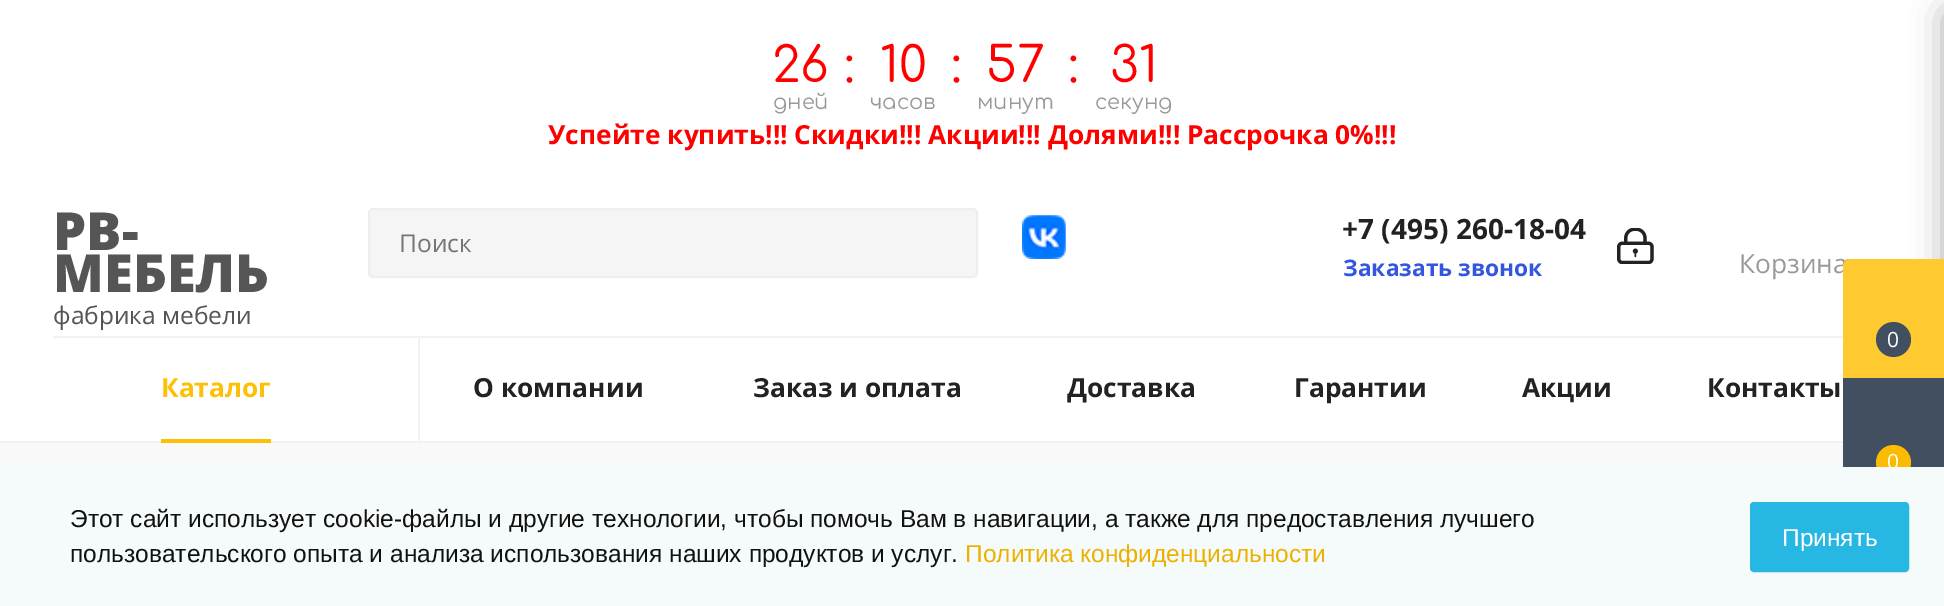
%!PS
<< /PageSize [1944 606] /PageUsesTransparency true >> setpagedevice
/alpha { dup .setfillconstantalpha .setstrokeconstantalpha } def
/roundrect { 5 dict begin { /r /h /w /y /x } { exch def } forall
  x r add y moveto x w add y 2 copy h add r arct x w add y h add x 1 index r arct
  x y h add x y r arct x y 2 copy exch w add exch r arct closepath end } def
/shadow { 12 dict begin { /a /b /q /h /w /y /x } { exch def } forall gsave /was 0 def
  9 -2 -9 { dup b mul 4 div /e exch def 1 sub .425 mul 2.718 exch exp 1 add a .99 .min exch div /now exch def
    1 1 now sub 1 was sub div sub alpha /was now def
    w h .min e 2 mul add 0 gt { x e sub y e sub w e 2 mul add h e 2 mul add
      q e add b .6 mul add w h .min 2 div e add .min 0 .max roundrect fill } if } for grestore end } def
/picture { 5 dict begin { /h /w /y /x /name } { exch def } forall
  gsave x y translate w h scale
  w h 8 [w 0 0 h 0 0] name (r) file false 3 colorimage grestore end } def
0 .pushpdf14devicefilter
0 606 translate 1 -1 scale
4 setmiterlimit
1 setgray
0 0 1944 606 rectfill
/Comfortaa-Regular [49 0 0 -49 0 0] selectfont
1 0 0 setrgbcolor
772 82 moveto (26) show
/Comfortaa-Regular [21 0 0 -21 0 0] selectfont
0.6 setgray
773 109 moveto (дней) show
/Comfortaa-Regular [49 0 0 -49 0 0] selectfont
1 0 0 setrgbcolor
845 82 moveto (:) show
880 82 moveto (10) show
/Comfortaa-Regular [21 0 0 -21 0 0] selectfont
0.6 setgray
870 109 moveto (часов) show
/Comfortaa-Regular [49 0 0 -49 0 0] selectfont
1 0 0 setrgbcolor
952 82 moveto (:) show
986 82 moveto (57) show
/Comfortaa-Regular [21 0 0 -21 0 0] selectfont
0.6 setgray
977 109 moveto (минут) show
/Comfortaa-Regular [49 0 0 -49 0 0] selectfont
1 0 0 setrgbcolor
1069 82 moveto (:) show
1110 82 moveto (31) show
/Comfortaa-Regular [21 0 0 -21 0 0] selectfont
0.6 setgray
1095 109 moveto (секунд) show
/OpenSans-Bold [26.25 0 0 -26.25 0 0] selectfont
1 0 0 setrgbcolor
548 144 moveto (Успейте купить!!! Скидки!!! Акции!!! Долями!!! Рассрочка 0%!!!) show
/OpenSans-ExtraBold [52.5 0 0 -52.5 0 0] selectfont
0.333 setgray
53 250 moveto (РВ-) show
53 292 moveto (МЕБЕЛЬ) show
/OpenSans-Regular [24.5 0 0 -24.5 0 0] selectfont
53 324 moveto (фабрика мебели) show
0.961 setgray
369 209 608 68 4 roundrect gsave fill grestore
0.933 setgray
2 setlinewidth
stroke
0.459 setgray
399 252 moveto (Поиск) show
(img1.rgb) 1022 215 44 44 picture
/OpenSans-Bold [28 0 0 -28 0 0] selectfont
0.133 setgray
1342 239 moveto (+7 \(495\) 260-18-04) show
/OpenSans-Bold [22.75 0 0 -22.75 0 0] selectfont
0.2 0.337 0.878 setrgbcolor
1343 276 moveto (Заказать звонок) show
(img2.rgb) 1617 228 37 36 picture
/OpenSans-Regular [26.25 0 0 -26.25 0 0] selectfont
0.6 setgray
1739 273 moveto (Корзина) show
0.949 setgray
0 441 1843 2 rectfill
53 336 1790 2 rectfill
418 338 2 103 rectfill
/OpenSans-Bold [26.25 0 0 -26.25 0 0] selectfont
0.996 0.753 0.024 setrgbcolor
161 397 moveto (Каталог) show
161 439 110 4 rectfill
0.133 setgray
473 397 moveto (О компании) show
753 397 moveto (Заказ и оплата) show
1067 397 moveto (Доставка) show
1294 397 moveto (Гарантии) show
1522 397 moveto (Акции) show
1707 397 moveto (Контакты) show
0.976 setgray
0 443 1843 24 rectfill
0.173 setgray
1944 11 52 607 4 16 0.4 shadow
0.259 0.31 0.376 setrgbcolor
newpath 1850 259 moveto 1944 259 lineto 1944 501 lineto 1850 501 lineto 1846 501 1843 498 1843 494 curveto 1843 266 lineto 1843 262 1846 259 1850 259 curveto closepath fill
0.996 0.792 0.184 setrgbcolor
newpath 1850 259 moveto 1944 259 lineto 1944 378 lineto 1843 378 lineto 1843 266 lineto 1843 262 1846 259 1850 259 curveto closepath fill
0.259 0.31 0.376 setrgbcolor
newpath 1893.5 339.5 17.5 0 360 arc closepath fill
/OpenSans-Regular [21 0 0 -21 0 0] selectfont
1 setgray
1887 347 moveto (0) show
0.98 0.733 0 setrgbcolor
newpath 1893.5 462.5 17.5 0 360 arc closepath fill
1 setgray
1887 469 moveto (0) show
0.961 0.98 0.98 setrgbcolor
0 467 1944 139 rectfill
/LiberationSans-Regular [24.5 0 0 -24.5 0 0] selectfont
0.067 setgray
70 527 moveto (Этот сайт использует cookie-файлы и другие технологии, чтобы помочь Вам в навигации, а также для предоставления лучшего) show
70 562 moveto (пользовательского опыта и анализа использования наших продуктов и услуг.) show
0.922 0.69 0 setrgbcolor
965 562 moveto (Политика конфиденциальности) show
0.149 0.722 0.886 setrgbcolor
1752 504 155 66 2 roundrect gsave fill grestore
4 setlinewidth
stroke
1 setgray
1782 546 moveto (Принять) show
.poppdf14devicefilter showpage
